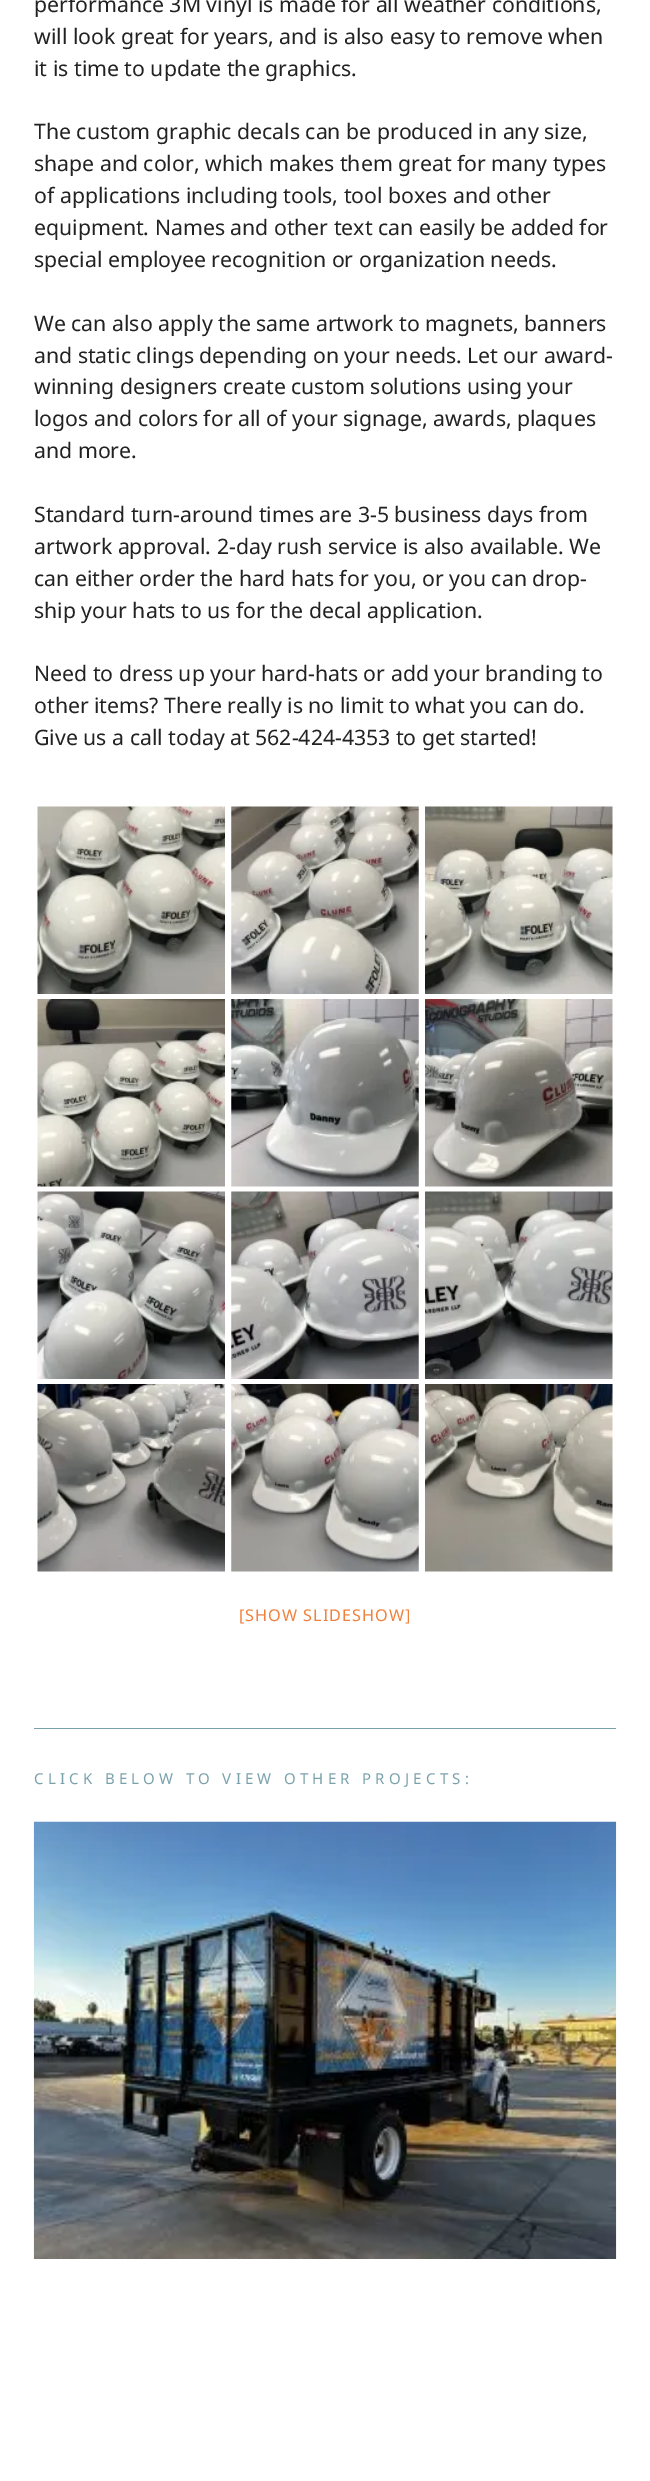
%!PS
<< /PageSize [650 2481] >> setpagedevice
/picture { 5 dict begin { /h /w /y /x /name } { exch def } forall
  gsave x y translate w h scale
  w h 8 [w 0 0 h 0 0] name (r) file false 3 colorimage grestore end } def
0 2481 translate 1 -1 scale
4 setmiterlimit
1 setgray
0 0 650 2481 rectfill
/NotoSans-Regular [21.25 0 0 -21.25 0 0] selectfont
0.133 setgray
34 12 moveto (performance 3M vinyl is made for all weather conditions,) show
34 44 moveto (will look great for years, and is also easy to remove when) show
34 76 moveto (it is time to update the graphics.) show
34 139 moveto (The custom graphic decals can be produced in any size,) show
34 171 moveto (shape and color, which makes them great for many types) show
34 203 moveto (of applications including tools, tool boxes and other) show
34 235 moveto (equipment. Names and other text can easily be added for) show
34 267 moveto (special employee recognition or organization needs.) show
34 331 moveto (We can also apply the same artwork to magnets, banners) show
34 363 moveto (and static clings depending on your needs. Let our award-) show
34 394 moveto (winning designers create custom solutions using your) show
34 426 moveto (logos and colors for all of your signage, awards, plaques) show
34 458 moveto (and more.) show
34 522 moveto (Standard turn-around times are 3-5 business days from) show
34 554 moveto (artwork approval. 2-day rush service is also available. We) show
34 586 moveto (can either order the hard hats for you, or you can drop-) show
34 618 moveto (ship your hats to us for the decal application.) show
34 681 moveto (Need to dress up your hard-hats or add your branding to) show
34 713 moveto (other items? There really is no limit to what you can do.) show
34 745 moveto (Give us a call today at 562-424-4353 to get started!) show
(img1.rgb) 37 806 188 188 picture
(img2.rgb) 231 806 188 188 picture
(img3.rgb) 425 806 188 188 picture
(img4.rgb) 37 999 188 188 picture
(img5.rgb) 231 999 188 188 picture
(img6.rgb) 425 999 188 188 picture
(img7.rgb) 37 1191 188 188 picture
(img8.rgb) 231 1191 188 188 picture
(img9.rgb) 425 1191 188 188 picture
(img10.rgb) 37 1384 188 188 picture
(img11.rgb) 231 1384 188 188 picture
(img12.rgb) 425 1384 188 188 picture
/NotoSans-Regular [16.25 0 0 -16.25 0 0] selectfont
0.941 0.506 0.235 setrgbcolor
239 1621 moveto 1 0 ([SHOW SLIDESHOW]) ashow
0.475 0.631 0.671 setrgbcolor
34 1728 582 1 rectfill
/NotoSans-Regular [15 0 0 -15 0 0] selectfont
34 1784 moveto 4.25 0 (CLICK BELOW TO VIEW OTHER PROJECTS:) ashow
(img13.rgb) 33 1821 584 438 picture
showpage
